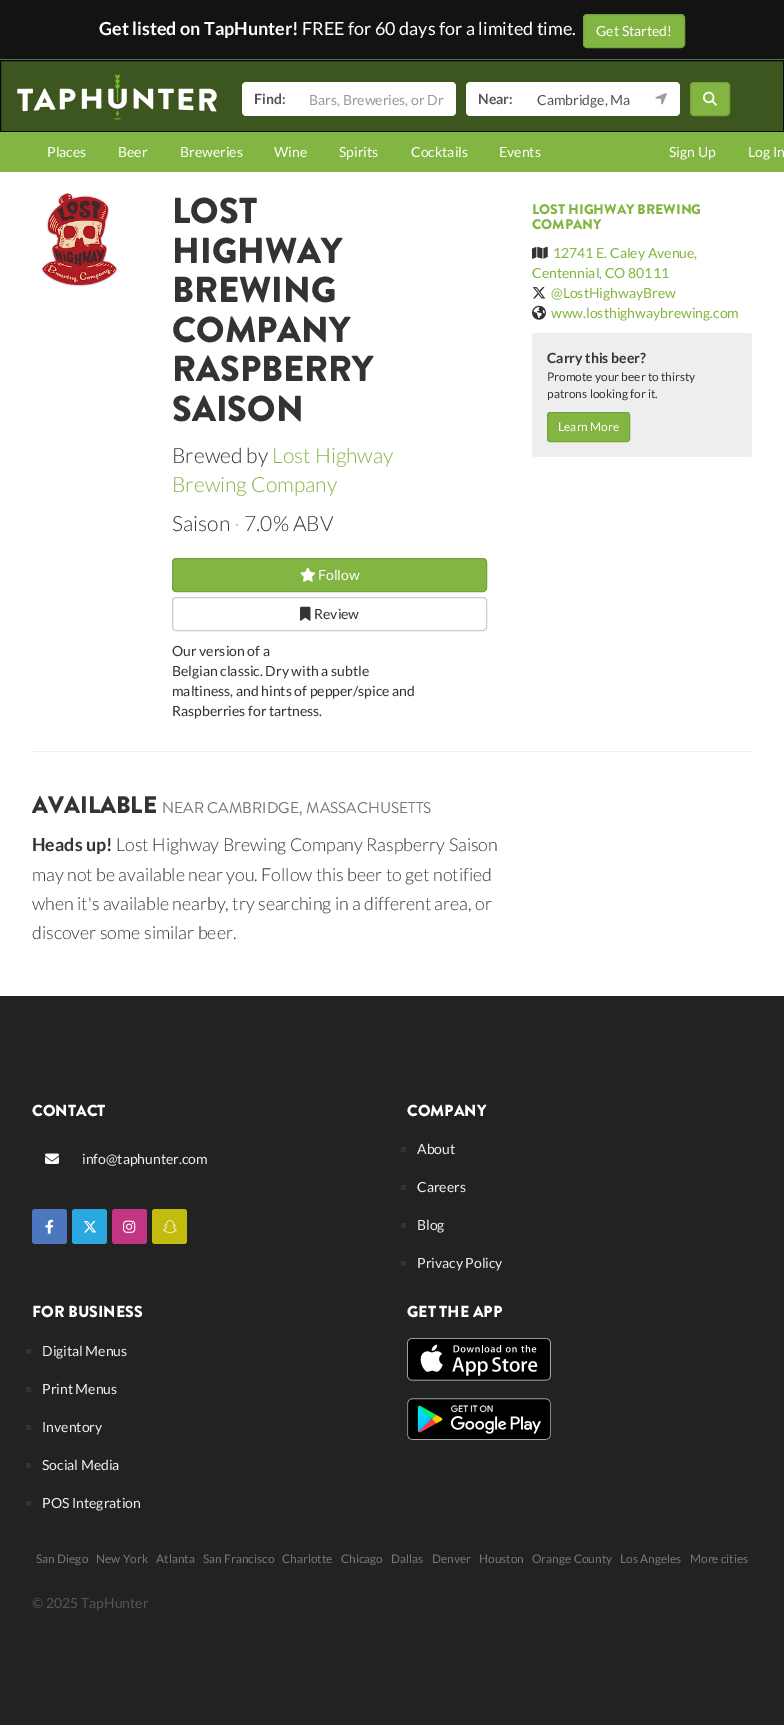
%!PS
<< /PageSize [784 1732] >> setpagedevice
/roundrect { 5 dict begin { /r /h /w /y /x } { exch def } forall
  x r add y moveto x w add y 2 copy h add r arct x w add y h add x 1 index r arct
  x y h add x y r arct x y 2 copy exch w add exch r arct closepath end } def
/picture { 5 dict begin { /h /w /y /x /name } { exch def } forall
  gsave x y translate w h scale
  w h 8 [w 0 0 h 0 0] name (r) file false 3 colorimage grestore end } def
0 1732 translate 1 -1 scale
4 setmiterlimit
1 setgray
0 0 784 1732 rectfill
0.075 setgray
0 0 784 59 rectfill
0.392 setgray
0 59 784 1 rectfill
/Lato-Bold [18 0 0 -18 0 0] selectfont
1 setgray
99 35 moveto (Get listed on TapHunter!) show
/Lato-Regular [18 0 0 -18 0 0] selectfont
302 35 moveto (FREE for 60 days for a limited time.) show
0.514 0.71 0.263 setrgbcolor
583.5 14.5 101 33 3.5 roundrect gsave fill grestore
0.463 0.635 0.235 setrgbcolor
stroke
/Lato-Regular [14 0 0 -14 0 0] selectfont
1 setgray
596 36 moveto (Get Started!) show
0.239 0.333 0.118 setrgbcolor
newpath 0.5 60.5 moveto 783.5 60.5 lineto 783.5 131.5 lineto 0.5 131.5 lineto closepath gsave fill grestore
0.035 setgray
stroke
(img1.rgb) 17 74 200 46 picture
1 setgray
newpath 246 82 moveto 297 82 lineto 297 116 lineto 246 116 lineto 244 116 242 114 242 112 curveto 242 86 lineto 242 84 244 82 246 82 curveto closepath fill
/Lato-Bold [14 0 0 -14 0 0] selectfont
0.333 setgray
254 104 moveto (Find:) show
1 setgray
newpath 297 82 moveto 452 82 lineto 454 82 456 84 456 86 curveto 456 112 lineto 456 114 454 116 452 116 curveto 297 116 lineto closepath fill
/Lato-Regular [14 0 0 -14 0 0] selectfont
0.6 setgray
309 105 moveto (Bars, Breweries, or Dr) show
1 setgray
newpath 470 82 moveto 525 82 lineto 525 116 lineto 470 116 lineto 468 116 466 114 466 112 curveto 466 86 lineto 466 84 468 82 470 82 curveto closepath fill
/Lato-Bold [14 0 0 -14 0 0] selectfont
0.333 setgray
478 104 moveto (Near:) show
1 setgray
525 82 117 34 rectfill
/Lato-Regular [14 0 0 -14 0 0] selectfont
0.333 setgray
537 105 moveto (Cambridge, Ma) show
1 setgray
newpath 642 82 moveto 676 82 lineto 678 82 680 84 680 86 curveto 680 112 lineto 680 114 678 116 676 116 curveto 642 116 lineto closepath fill
(img2.rgb) 655 93 12 12 picture
0.514 0.71 0.263 setrgbcolor
690.5 82.5 39 33 3.5 roundrect gsave fill grestore
0.463 0.635 0.235 setrgbcolor
stroke
(img3.rgb) 703 91 14 15 picture
0.514 0.71 0.263 setrgbcolor
0 132 784 40 rectfill
1 setgray
47 157 moveto (Places) show
118 157 moveto (Beer) show
180 157 moveto (Breweries) show
274 157 moveto (Wine) show
339 157 moveto (Spirits) show
411 157 moveto (Cocktails) show
499 157 moveto (Events) show
669 157 moveto (Sign Up) show
748 157 moveto (Log In) show
(img4.rgb) 41 192 77 95 picture
/BrandonGrotesque-Black [36 0 0 -36 0 0] selectfont
0.2 setgray
172 223 moveto (LOST) show
172 263 moveto (HIGHWAY) show
172 302 moveto (BREWING) show
172 342 moveto (COMPANY) show
172 381 moveto (RASPBERRY) show
172 421 moveto (SAISON) show
/Lato-Light [21 0 0 -21 0 0] selectfont
172 463 moveto (Brewed by) show
0.514 0.71 0.263 setrgbcolor
272 463 moveto (Lost Highway) show
172 492 moveto (Brewing Company) show
0.2 setgray
172 531 moveto (Saison) show
0.733 setgray
234 531 moveto (·) show
0.2 setgray
244 531 moveto (7.0% ABV) show
0.514 0.71 0.263 setrgbcolor
172.5 558.5 314 33 3.5 roundrect gsave fill grestore
0.463 0.635 0.235 setrgbcolor
stroke
(img5.rgb) 300 567 16 15 picture
/Lato-Regular [14 0 0 -14 0 0] selectfont
1 setgray
318 580 moveto (Follow) show
0.8 setgray
172.5 597.5 314 33 3.5 roundrect stroke
(img6.rgb) 300 606 11 15 picture
0.2 setgray
314 619 moveto (Review) show
172 656 moveto (Our version of a) show
172 676 moveto (Belgian classic. Dry with a subtle) show
172 696 moveto (maltiness, and hints of pepper/spice and) show
172 716 moveto (Raspberries for tartness.) show
/BrandonGrotesque-Black [14 0 0 -14 0 0] selectfont
0.514 0.71 0.263 setrgbcolor
532 214 moveto (LOST HIGHWAY BREWING) show
532 229 moveto (COMPANY) show
(img7.rgb) 532 246 16 13 picture
/Lato-Regular [14 0 0 -14 0 0] selectfont
553 258 moveto (12741 E. Caley Avenue,) show
532 278 moveto (Centennial, CO 80111) show
(img8.rgb) 532 287 14 12 picture
551 298 moveto (@LostHighwayBrew) show
(img9.rgb) 532 305 14 15 picture
551 318 moveto (www.losthighwaybrewing.com) show
0.933 setgray
532 333 220 124 3 roundrect fill
/Lato-Bold [14 0 0 -14 0 0] selectfont
0.2 setgray
547 363 moveto (Carry this beer?) show
/Lato-Regular [11.9 0 0 -11.9 0 0] selectfont
547 381 moveto (Promote your beer to thirsty) show
547 398 moveto (patrons looking for it.) show
0.514 0.71 0.263 setrgbcolor
547.5 412.5 82 29 2.5 roundrect gsave fill grestore
0.463 0.635 0.235 setrgbcolor
stroke
/Lato-Regular [12 0 0 -12 0 0] selectfont
1 setgray
558 431 moveto (Learn More) show
0.933 setgray
32 751 720 1 rectfill
/BrandonGrotesque-Black [24 0 0 -24 0 0] selectfont
0.2 setgray
32 813 moveto (AVAILABLE) show
/BrandonGrotesque-Regular [15.6 0 0 -15.6 0 0] selectfont
0.467 setgray
162 813 moveto (NEAR CAMBRIDGE, MASSACHUSETTS) show
/Lato-Bold [17.85 0 0 -17.85 0 0] selectfont
0.2 setgray
32 851 moveto (Heads up!) show
/Lato-Light [17.85 0 0 -17.85 0 0] selectfont
116 851 moveto (Lost Highway Brewing Company Raspberry Saison) show
32 881 moveto (may not be available near you. Follow this beer to get notified) show
32 910 moveto (when it's available nearby, try searching in a different area, or) show
32 939 moveto (discover some similar beer.) show
0.133 setgray
0 996 784 729 rectfill
/BrandonGrotesque-Black [16 0 0 -16 0 0] selectfont
1 setgray
32 1116 moveto (CONTACT) show
(img10.rgb) 45 1153 14 11 picture
/Lato-Regular [14 0 0 -14 0 0] selectfont
0.933 setgray
82 1164 moveto (info@taphunter.com) show
0.294 0.467 0.745 setrgbcolor
32 1209 35 35 3 roundrect fill
(img11.rgb) 45 1219 9 15 picture
0.165 0.663 0.878 setrgbcolor
72 1209 35 35 3 roundrect fill
(img12.rgb) 83 1221 14 12 picture
0.757 0.208 0.518 setrgbcolor
112 1209 35 35 3 roundrect fill
(img13.rgb) 123 1220 13 13 picture
0.761 0.737 0.059 setrgbcolor
152 1209 35 35 3 roundrect fill
(img14.rgb) 163 1220 14 14 picture
/BrandonGrotesque-Black [16 0 0 -16 0 0] selectfont
1 setgray
407 1116 moveto (COMPANY) show
0.2 setgray
401 1147 5 5 rectfill
/Lato-Regular [14 0 0 -14 0 0] selectfont
0.933 setgray
417 1154 moveto (About) show
0.2 setgray
401 1185 5 5 rectfill
0.933 setgray
417 1192 moveto (Careers) show
0.2 setgray
401 1223 5 5 rectfill
0.933 setgray
417 1230 moveto (Blog) show
0.2 setgray
401 1261 5 5 rectfill
0.933 setgray
417 1268 moveto (Privacy Policy) show
/BrandonGrotesque-Black [16 0 0 -16 0 0] selectfont
1 setgray
32 1317 moveto (FOR BUSINESS) show
0.2 setgray
26 1349 5 5 rectfill
/Lato-Regular [14 0 0 -14 0 0] selectfont
0.933 setgray
42 1356 moveto (Digital Menus) show
0.2 setgray
26 1387 5 5 rectfill
0.933 setgray
42 1394 moveto (Print Menus) show
0.2 setgray
26 1425 5 5 rectfill
0.933 setgray
42 1432 moveto (Inventory) show
0.2 setgray
26 1463 5 5 rectfill
0.933 setgray
42 1470 moveto (Social Media) show
0.2 setgray
26 1501 5 5 rectfill
0.933 setgray
42 1508 moveto (POS Integration) show
/BrandonGrotesque-Black [16 0 0 -16 0 0] selectfont
1 setgray
407 1317 moveto (GET THE APP) show
(img15.rgb) 407 1338 144 43 picture
(img16.rgb) 407 1398 144 42 picture
/Lato-Regular [11.9 0 0 -11.9 0 0] selectfont
0.467 setgray
36 1563 moveto (San Diego) show
96 1563 moveto (New York) show
156 1563 moveto (Atlanta) show
203 1563 moveto (San Francisco) show
282 1563 moveto (Charlotte) show
341 1563 moveto (Chicago) show
391 1563 moveto (Dallas) show
432 1563 moveto (Denver) show
479 1563 moveto (Houston) show
532 1563 moveto (Orange County) show
620 1563 moveto (Los Angeles) show
690 1563 moveto (More cities) show
/Lato-Regular [14 0 0 -14 0 0] selectfont
0.333 setgray
32 1608 moveto (© 2025 TapHunter) show
showpage
